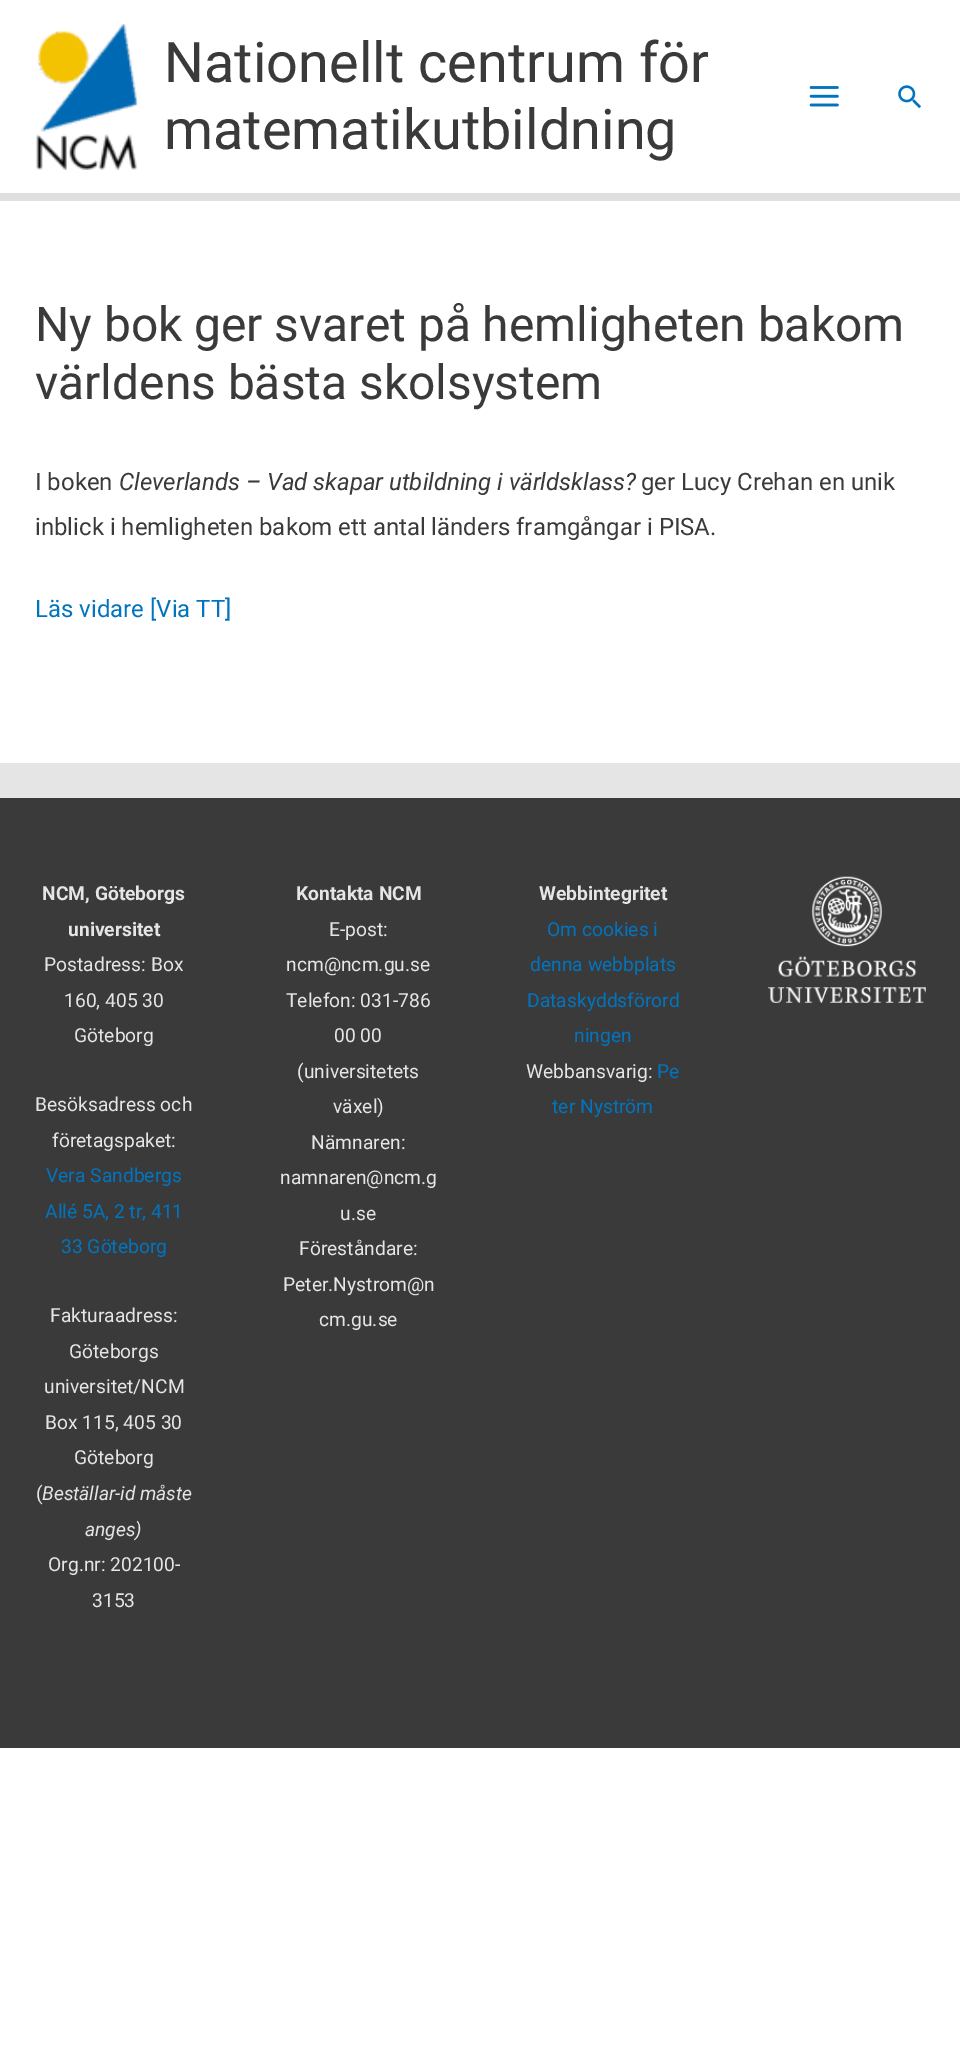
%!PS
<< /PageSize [960 2069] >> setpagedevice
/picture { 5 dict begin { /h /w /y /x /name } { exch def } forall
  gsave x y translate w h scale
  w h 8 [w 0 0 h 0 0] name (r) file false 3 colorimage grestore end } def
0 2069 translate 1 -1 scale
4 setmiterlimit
1 setgray
0 0 960 2069 rectfill
0.875 setgray
0 193 960 8 rectfill
(img1.rgb) 36 24 102 146 picture
/Roboto-Regular [55.9 0 0 -55.9 0 0] selectfont
0.227 setgray
164 82 moveto (Nationellt centrum för) show
164 149 moveto (matematikutbildning) show
(img2.rgb) 809 86 30 21 picture
(img3.rgb) 898 85 23 24 picture
/Roboto-Regular [47.9 0 0 -47.9 0 0] selectfont
35 341 moveto (Ny bok ger svaret på hemligheten bakom) show
35 399 moveto (världens bästa skolsystem) show
/Roboto-Regular [23.95 0 0 -23.95 0 0] selectfont
35 490 moveto (I boken) show
/Roboto-Italic [23.95 0 0 -23.95 0 0] selectfont
119 490 moveto (Cleverlands – Vad skapar utbildning i världsklass?) show
/Roboto-Regular [23.95 0 0 -23.95 0 0] selectfont
641 490 moveto (ger Lucy Crehan en unik) show
35 535 moveto (inblick i hemligheten bakom ett antal länders framgångar i PISA.) show
0.008 0.455 0.745 setrgbcolor
35 617 moveto (Läs vidare [Via TT]) show
0.227 setgray
0 798 960 950 rectfill
0.898 setgray
0 763 960 35 rectfill
/Roboto-Bold [19.25 0 0 -19.25 0 0] selectfont
42 900 moveto (NCM, Göteborgs) show
68 936 moveto (universitet) show
/Roboto-Regular [19.25 0 0 -19.25 0 0] selectfont
44 971 moveto (Postadress: Box) show
64 1007 moveto (160, 405 30) show
74 1042 moveto (Göteborg) show
35 1111 moveto (Besöksadress och) show
52 1147 moveto (företagspaket:) show
0.008 0.455 0.745 setrgbcolor
46 1182 moveto (Vera Sandbergs) show
45 1218 moveto (Allé 5A, 2 tr, 411) show
61 1253 moveto (33 Göteborg) show
0.898 setgray
50 1322 moveto (Fakturaadress:) show
69 1358 moveto (Göteborgs) show
44 1393 moveto (universitet/NCM) show
45 1429 moveto (Box 115, 405 30) show
74 1464 moveto (Göteborg) show
36 1500 moveto (\() show
/Roboto-Italic [19.25 0 0 -19.25 0 0] selectfont
42 1500 moveto (Beställar-id måste) show
85 1536 moveto (anges\)) show
/Roboto-Regular [19.25 0 0 -19.25 0 0] selectfont
48 1571 moveto (Org.nr: 202100-) show
92 1607 moveto (3153) show
/Roboto-Bold [19.25 0 0 -19.25 0 0] selectfont
296 900 moveto (Kontakta NCM) show
/Roboto-Regular [19.25 0 0 -19.25 0 0] selectfont
329 936 moveto (E-post:) show
286 971 moveto (ncm@ncm.gu.se) show
286 1007 moveto (Telefon: 031-786) show
334 1042 moveto (00 00) show
297 1078 moveto (\(universitetets) show
333 1113 moveto (växel\)) show
311 1149 moveto (Nämnaren:) show
280 1184 moveto (namnaren@ncm.g) show
340 1220 moveto (u.se) show
299 1255 moveto (Föreståndare:) show
283 1291 moveto (Peter.Nystrom@n) show
319 1326 moveto (cm.gu.se) show
/Roboto-Bold [19.25 0 0 -19.25 0 0] selectfont
539 900 moveto (Webbintegritet) show
/Roboto-Regular [19.25 0 0 -19.25 0 0] selectfont
0.008 0.455 0.745 setrgbcolor
547 936 moveto (Om cookies i) show
530 971 moveto (denna webbplats) show
527 1007 moveto (Dataskyddsförord) show
574 1042 moveto (ningen) show
0.898 setgray
526 1078 moveto (Webbansvarig:) show
0.008 0.455 0.745 setrgbcolor
657 1078 moveto (Pe) show
552 1113 moveto (ter Nyström) show
(img4.rgb) 768 876 158 127 picture
showpage
